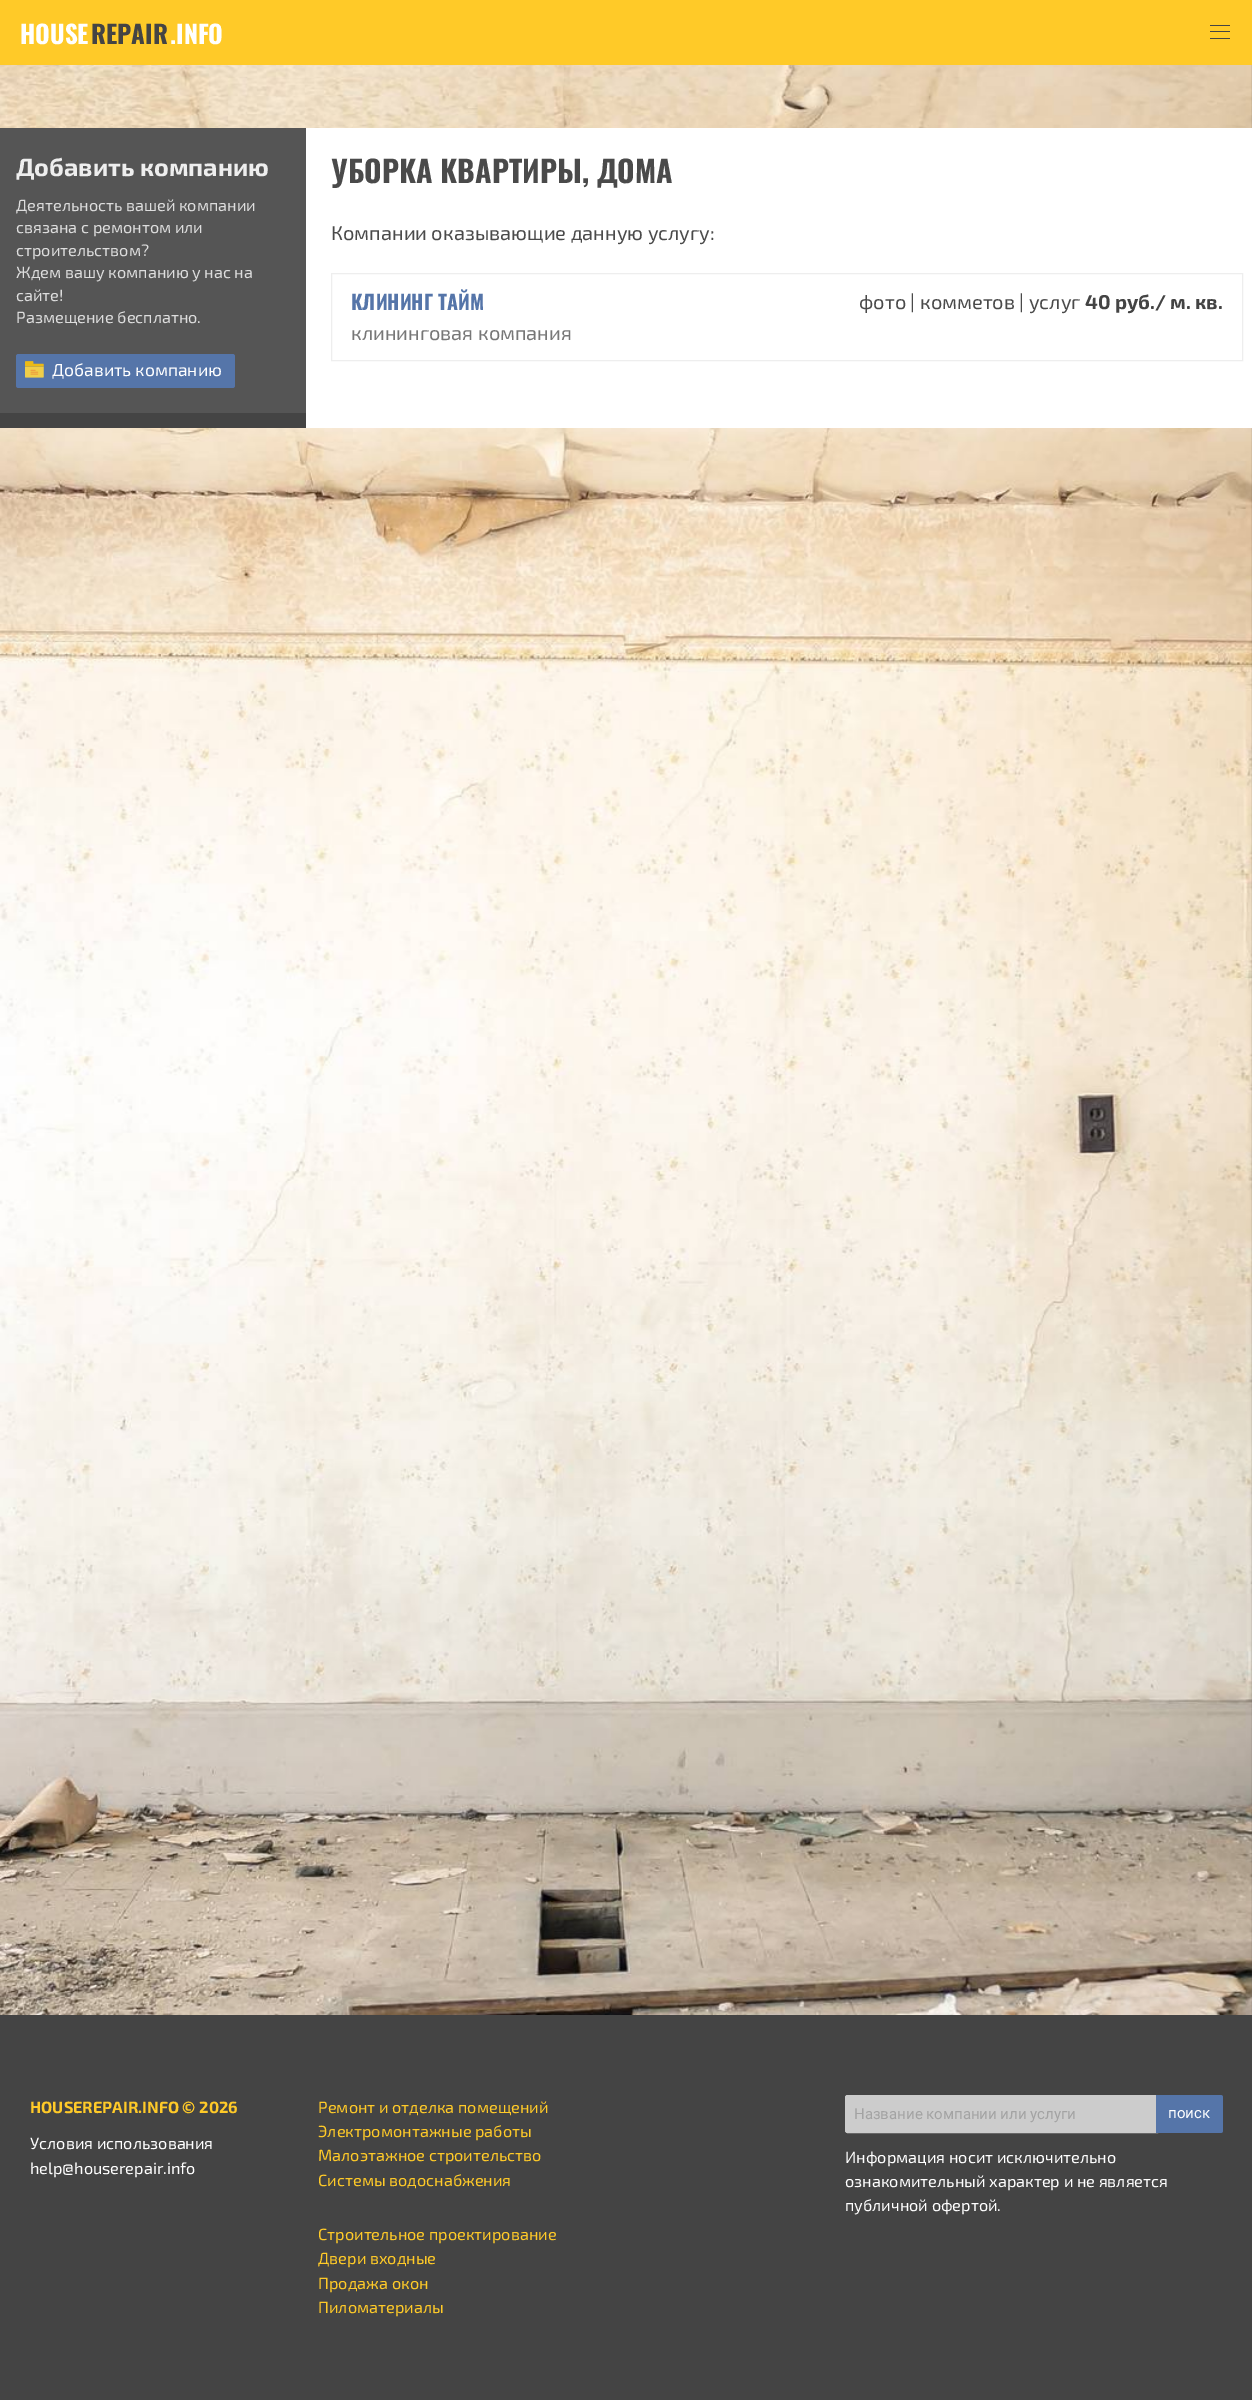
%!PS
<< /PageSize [1252 2400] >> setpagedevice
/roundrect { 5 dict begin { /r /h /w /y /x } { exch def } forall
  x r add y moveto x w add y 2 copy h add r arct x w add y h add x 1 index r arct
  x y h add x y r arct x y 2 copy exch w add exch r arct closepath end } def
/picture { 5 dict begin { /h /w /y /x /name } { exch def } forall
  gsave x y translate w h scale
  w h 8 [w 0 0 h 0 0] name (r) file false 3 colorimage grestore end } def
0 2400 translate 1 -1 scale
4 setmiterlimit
1 setgray
0 0 1252 2400 rectfill
(img1.rgb) 0 65 1252 1950 picture
1 0.792 0.157 setrgbcolor
0 0 1252 65 rectfill
/Oswald-Bold [25 0 0 -25 0 0] selectfont
1 setgray
20 44 moveto (HOUSE) show
0.267 setgray
91 44 moveto (REPAIR) show
1 setgray
170 44 moveto (.INFO) show
0.267 setgray
1210 25 20 1 rectfill
1210 31 20 1 rectfill
1210 38 20 1 rectfill
0 413 306 15 rectfill
0.333 setgray
0 128 306 285 rectfill
/Exo2-Bold [25 0 0 -25 0 0] selectfont
0.933 setgray
16 176 moveto (Добавить компанию) show
/Exo2-Regular [16.25 0 0 -16.25 0 0] selectfont
0.867 setgray
16 211 moveto (Деятельность вашей компании) show
16 233 moveto (связана с ремонтом или) show
16 256 moveto (строительством?) show
16 278 moveto (Ждем вашу компанию у нас на) show
16 301 moveto (сайте!) show
16 323 moveto (Размещение бесплатно.) show
0.333 0.459 0.663 setrgbcolor
16 354 219 34 2.5 roundrect fill
(img2.rgb) 25 361 19 17 picture
/Exo2-Regular [17.5 0 0 -17.5 0 0] selectfont
1 setgray
52 376 moveto (Добавить компанию) show
306 128 946 300 rectfill
/Oswald-Bold [30 0 0 -30 0 0] selectfont
0.29 setgray
331 183 moveto (УБОРКА КВАРТИРЫ, ДОМА) show
/Exo2-Regular [20 0 0 -20 0 0] selectfont
331 240 moveto (Компании оказывающие данную услугу:) show
0.933 setgray
331.5 273.5 911 87 rectstroke
/Oswald-Bold [20 0 0 -20 0 0] selectfont
0.333 0.459 0.663 setrgbcolor
351 310 moveto (КЛИНИНГ ТАЙМ) show
/Exo2-Regular [20 0 0 -20 0 0] selectfont
0.467 setgray
351 340 moveto (клининговая компания) show
0.29 setgray
859 309 moveto (фото | комметов | услуг) show
/Exo2-Bold [20 0 0 -20 0 0] selectfont
0.267 setgray
1085 309 moveto (40 руб./ м. кв.) show
0 2015 1252 385 rectfill
/Exo2-Bold [16.25 0 0 -16.25 0 0] selectfont
1 0.792 0.157 setrgbcolor
30 2113 moveto (HOUSEREPAIR.INFO © 2026) show
/Exo2-Regular [16.25 0 0 -16.25 0 0] selectfont
1 setgray
30 2149 moveto (Условия использования) show
30 2174 moveto (help@houserepair.info) show
1 0.792 0.157 setrgbcolor
318 2113 moveto (Ремонт и отделка помещений) show
318 2137 moveto (Электромонтажные работы) show
318 2161 moveto (Малоэтажное строительство) show
318 2186 moveto (Системы водоснабжения) show
318 2240 moveto (Строительное проектирование) show
318 2264 moveto (Двери входные) show
318 2289 moveto (Продажа окон) show
318 2313 moveto (Пиломатериалы) show
0.8 setgray
newpath 847.5 2095.5 moveto 1157.5 2095.5 lineto 1157.5 2132.5 lineto 847.5 2132.5 lineto 846.5 2132.5 845.5 2131.5 845.5 2130.5 curveto 845.5 2097.5 lineto 845.5 2096.5 846.5 2095.5 847.5 2095.5 curveto closepath gsave fill grestore
stroke
/Roboto-Regular [15 0 0 -15 0 0] selectfont
0.639 setgray
854 2119 moveto (Название компании или услуги) show
0.333 0.459 0.663 setrgbcolor
newpath 1156 2095 moveto 1220.5 2095 lineto 1222 2095 1223 2096 1223 2097.5 curveto 1223 2130.5 lineto 1223 2132 1222 2133 1220.5 2133 curveto 1156 2133 lineto closepath fill
1 setgray
1168 2118 moveto (поиск) show
/Exo2-Regular [16.25 0 0 -16.25 0 0] selectfont
845 2163 moveto (Информация носит исключительно) show
845 2187 moveto (ознакомительный характер и не является) show
845 2211 moveto (публичной офертой.) show
showpage
